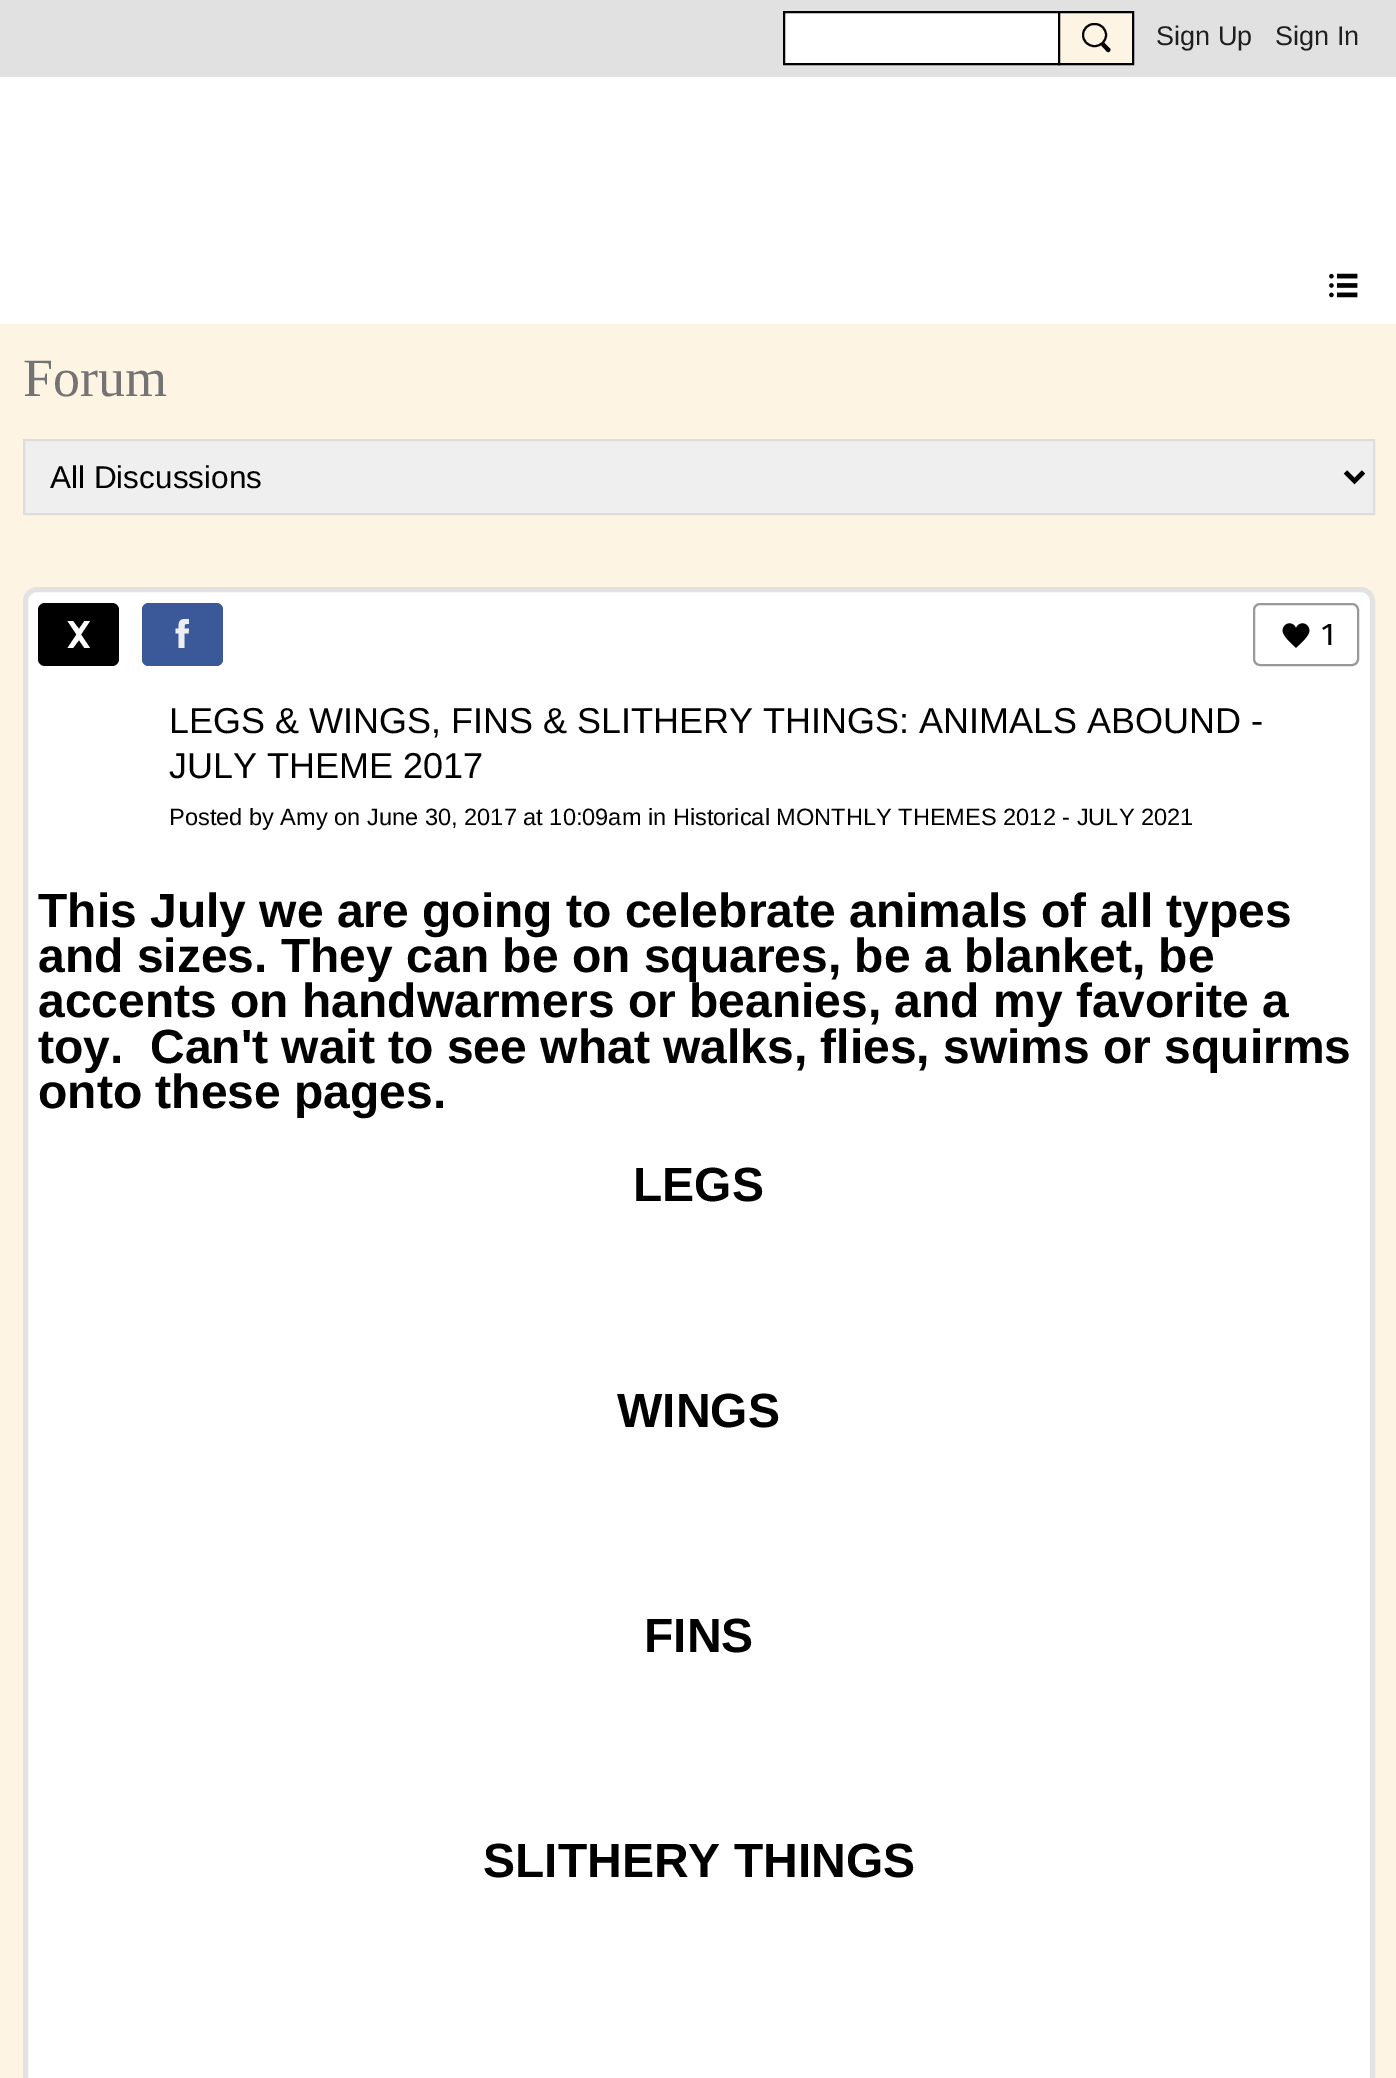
%!PS
<< /PageSize [1396 2078] /PageUsesTransparency true >> setpagedevice
/alpha { dup .setfillconstantalpha .setstrokeconstantalpha } def
/roundrect { 5 dict begin { /r /h /w /y /x } { exch def } forall
  x r add y moveto x w add y 2 copy h add r arct x w add y h add x 1 index r arct
  x y h add x y r arct x y 2 copy exch w add exch r arct closepath end } def
/picture { 5 dict begin { /h /w /y /x /name } { exch def } forall
  gsave x y translate w h scale
  w h 8 [w 0 0 h 0 0] name (r) file false 3 colorimage grestore end } def
0 .pushpdf14devicefilter
0 2078 translate 1 -1 scale
4 setmiterlimit
0.996 0.957 0.894 setrgbcolor
0 0 1396 2078 rectfill
0.882 setgray
0 0 1396 77 rectfill
1 setgray
newpath 784 12 moveto 1059 12 lineto 1059 64 lineto 784 64 lineto closepath gsave fill grestore
0 setgray
2 setlinewidth
stroke
0.996 0.957 0.894 setrgbcolor
newpath 1059 12 moveto 1133 12 lineto 1133 64 lineto 1059 64 lineto closepath gsave fill grestore
0 setgray
stroke
1083 24 23 22 11 roundrect stroke
newpath 1105 43.5 moveto 1110 48.5 lineto 1110.5 49 1110.5 50 1110 51 curveto 1108.5 53.5 1106 51 1105 49.5 curveto 1102 46.5 lineto 1100 44.5 1103 41 1105 43.5 curveto closepath fill
/LiberationSans-Regular [27 0 0 -27 0 0] selectfont
0.122 setgray
1156 45 moveto (Sign Up) show
1275 45 moveto (Sign In) show
1 setgray
0 77 1396 247 rectfill
(img1.rgb) 1329 273 29 25 picture
/LiberationSerif-Regular [54 0 0 -54 0 0] selectfont
0.451 setgray
23 396 moveto (Forum) show
0.937 setgray
newpath 24 440 moveto 1374 440 lineto 1374 514 lineto 24 514 lineto closepath gsave fill grestore
0.867 setgray
stroke
0 setgray
4.5 setlinewidth
newpath 1345.5 472 moveto 1354.5 481 lineto 1363.5 472 lineto stroke
/LiberationSans-Regular [31.5 0 0 -31.5 0 0] selectfont
50 488 moveto (All Discussions) show
1 setgray
25.5 589.5 1347 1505 11.5 roundrect gsave fill grestore
0.886 setgray
5 setlinewidth
stroke
0 setgray
38 603 81 63 7 roundrect fill
1 setgray
newpath 67.5 621 moveto 76.5 634.5 lineto 67.5 648 lineto 73 648 lineto 79 640 lineto 84.5 648 lineto 90 648 lineto 81 634.5 lineto 90 621 lineto 84.5 621 lineto 79 629 lineto 73 621 lineto closepath eofill
0.231 0.349 0.596 setrgbcolor
142 603 81 63 7 roundrect fill
0.9 alpha
142 603 81 63 7 roundrect fill
1 alpha
0.922 0.933 0.961 setrgbcolor
newpath 184.5 648 moveto 184.5 633.5 lineto 188.5 633.5 lineto 189 628.5 lineto 184.5 628.5 lineto 184.5 623.5 184.5 624 189 624 curveto 189 619 lineto 180.5 619 178.5 619 178.5 628.5 curveto 175.5 628.5 lineto 175.5 633.5 lineto 178.5 633.5 lineto 178.5 648 lineto closepath fill
0.6 setgray
2 setlinewidth
1254 604 104 61 6 roundrect stroke
(img2.rgb) 1282 623 28 25 picture
/FiraSans-Regular [31.5 0 0 -31.5 0 0] selectfont
0 setgray
1321 645 moveto (1) show
/LiberationSans-Regular [36 0 0 -36 0 0] selectfont
169 733 moveto (LEGS & WINGS, FINS & SLITHERY THINGS: ANIMALS ABOUND -) show
169 778 moveto (JULY THEME 2017) show
/LiberationSans-Regular [23.6 0 0 -23.6 0 0] selectfont
169 825 moveto (Posted by Amy on June 30, 2017 at 10:09am in Historical MONTHLY THEMES 2012 - JULY 2021) show
/LiberationSans-Bold [48 0 0 -48 0 0] selectfont
38 927 moveto (This July we are going to celebrate animals of all types) show
38 972 moveto (and sizes. They can be on squares, be a blanket, be) show
38 1017 moveto (accents on handwarmers or beanies, and my favorite a) show
38 1063 moveto (toy.  Can't wait to see what walks, flies, swims or squirms) show
38 1108 moveto (onto these pages.) show
633 1201 moveto (LEGS) show
617 1427 moveto (WINGS) show
644 1652 moveto (FINS) show
483 1877 moveto (SLITHERY THINGS) show
.poppdf14devicefilter showpage
